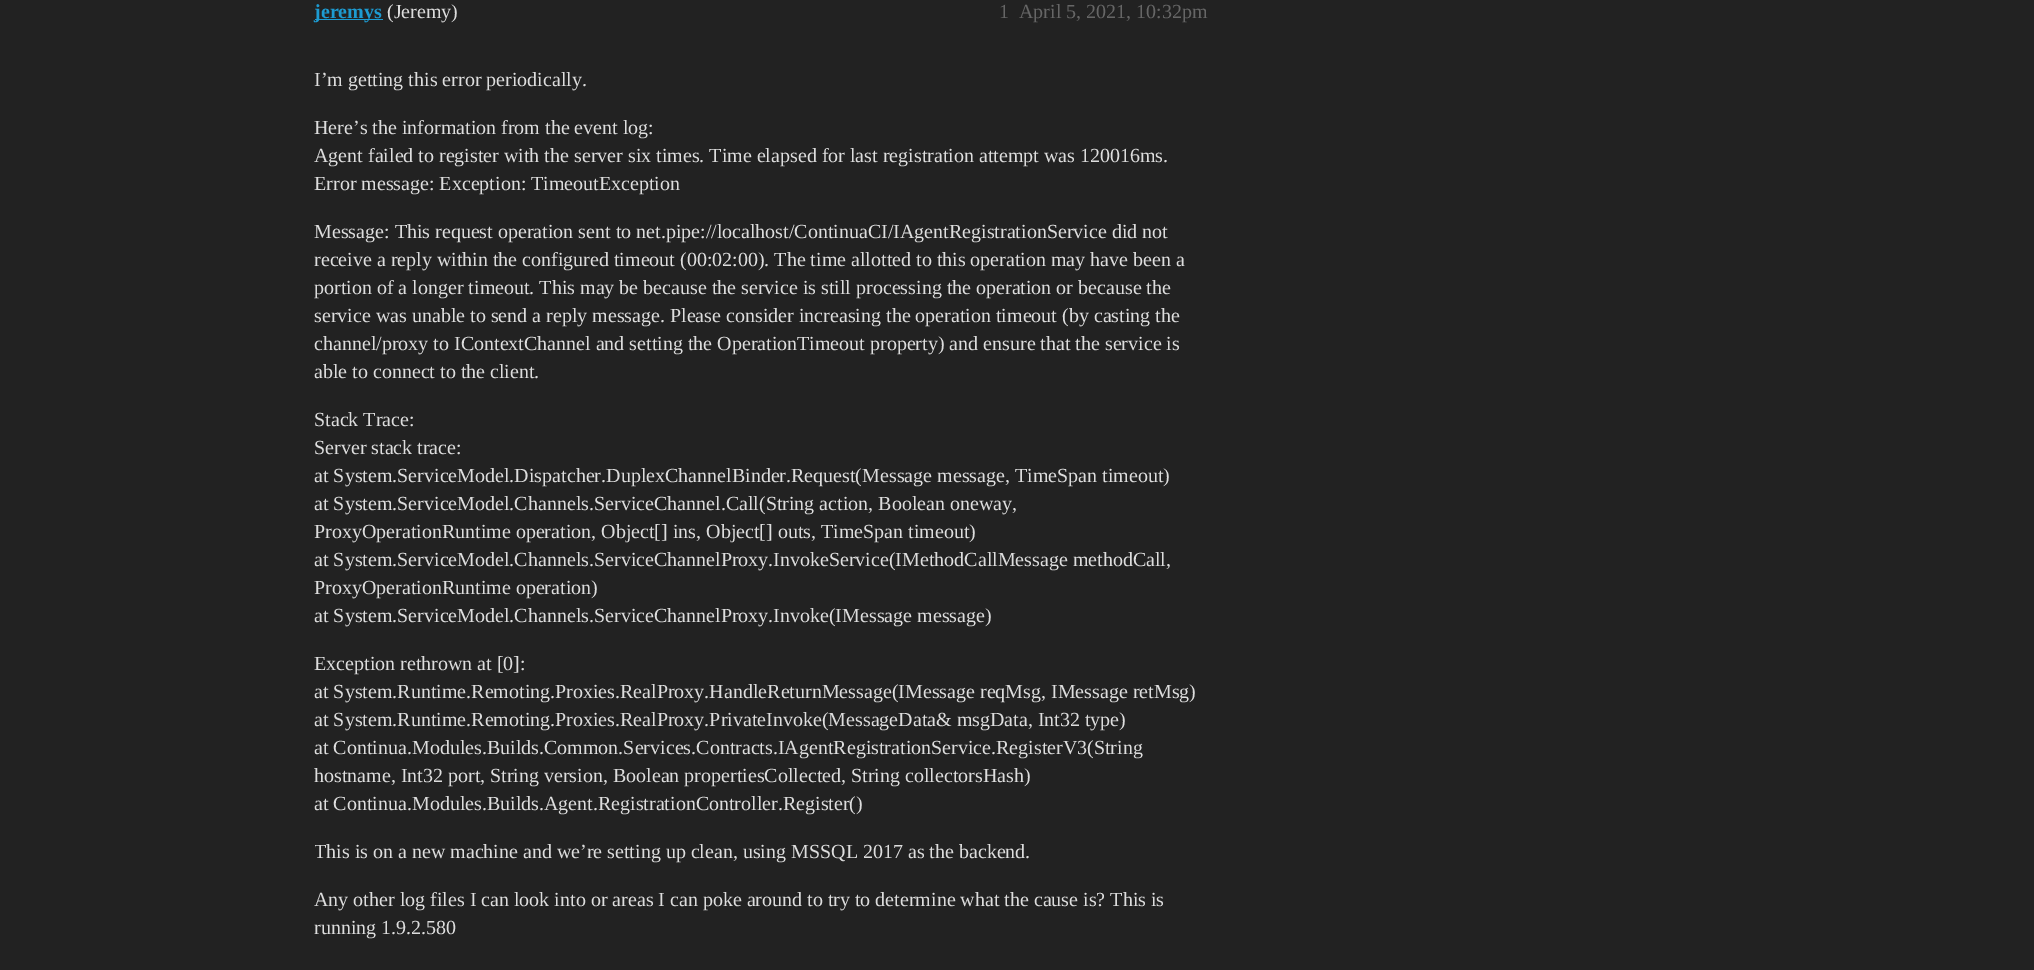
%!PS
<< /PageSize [2034 970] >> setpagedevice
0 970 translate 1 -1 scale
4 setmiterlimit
0.133 setgray
0 0 2034 970 rectfill
0.114 0.608 0.82 setrgbcolor
315 19 68 1 rectfill
/LiberationSerif-Bold [20 0 0 -20 0 0] selectfont
314 18 moveto (jeremys) show
/LiberationSerif-Regular [20 0 0 -20 0 0] selectfont
0.867 setgray
387 18 moveto (\(Jeremy\)) show
0.4 setgray
999 18 moveto (1) show
1019 18 moveto (April 5, 2021, 10:32pm) show
0.867 setgray
314 86 moveto (I’m getting this error periodically.) show
314 134 moveto (Here’s the information from the event log:) show
314 162 moveto (Agent failed to register with the server six times. Time elapsed for last registration attempt was 120016ms.) show
314 190 moveto (Error message: Exception: TimeoutException) show
314 238 moveto (Message: This request operation sent to net.pipe://localhost/ContinuaCI/IAgentRegistrationService did not) show
314 266 moveto (receive a reply within the configured timeout \(00:02:00\). The time allotted to this operation may have been a) show
314 294 moveto (portion of a longer timeout. This may be because the service is still processing the operation or because the) show
314 322 moveto (service was unable to send a reply message. Please consider increasing the operation timeout \(by casting the) show
314 350 moveto (channel/proxy to IContextChannel and setting the OperationTimeout property\) and ensure that the service is) show
314 378 moveto (able to connect to the client.) show
314 426 moveto (Stack Trace:) show
314 454 moveto (Server stack trace:) show
314 482 moveto (at System.ServiceModel.Dispatcher.DuplexChannelBinder.Request\(Message message, TimeSpan timeout\)) show
314 510 moveto (at System.ServiceModel.Channels.ServiceChannel.Call\(String action, Boolean oneway,) show
314 538 moveto (ProxyOperationRuntime operation, Object[] ins, Object[] outs, TimeSpan timeout\)) show
314 566 moveto (at System.ServiceModel.Channels.ServiceChannelProxy.InvokeService\(IMethodCallMessage methodCall,) show
314 594 moveto (ProxyOperationRuntime operation\)) show
314 622 moveto (at System.ServiceModel.Channels.ServiceChannelProxy.Invoke\(IMessage message\)) show
314 670 moveto (Exception rethrown at [0]:) show
314 698 moveto (at System.Runtime.Remoting.Proxies.RealProxy.HandleReturnMessage\(IMessage reqMsg, IMessage retMsg\)) show
314 726 moveto (at System.Runtime.Remoting.Proxies.RealProxy.PrivateInvoke\(MessageData& msgData, Int32 type\)) show
314 754 moveto (at Continua.Modules.Builds.Common.Services.Contracts.IAgentRegistrationService.RegisterV3\(String) show
314 782 moveto (hostname, Int32 port, String version, Boolean propertiesCollected, String collectorsHash\)) show
314 810 moveto (at Continua.Modules.Builds.Agent.RegistrationController.Register\(\)) show
gsave
315 46 893 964 rectclip
314 858 moveto (This is on a new machine and we’re setting up clean, using MSSQL 2017 as the backend.) show
grestore
314 906 moveto (Any other log files I can look into or areas I can poke around to try to determine what the cause is? This is) show
314 934 moveto (running 1.9.2.580) show
showpage
